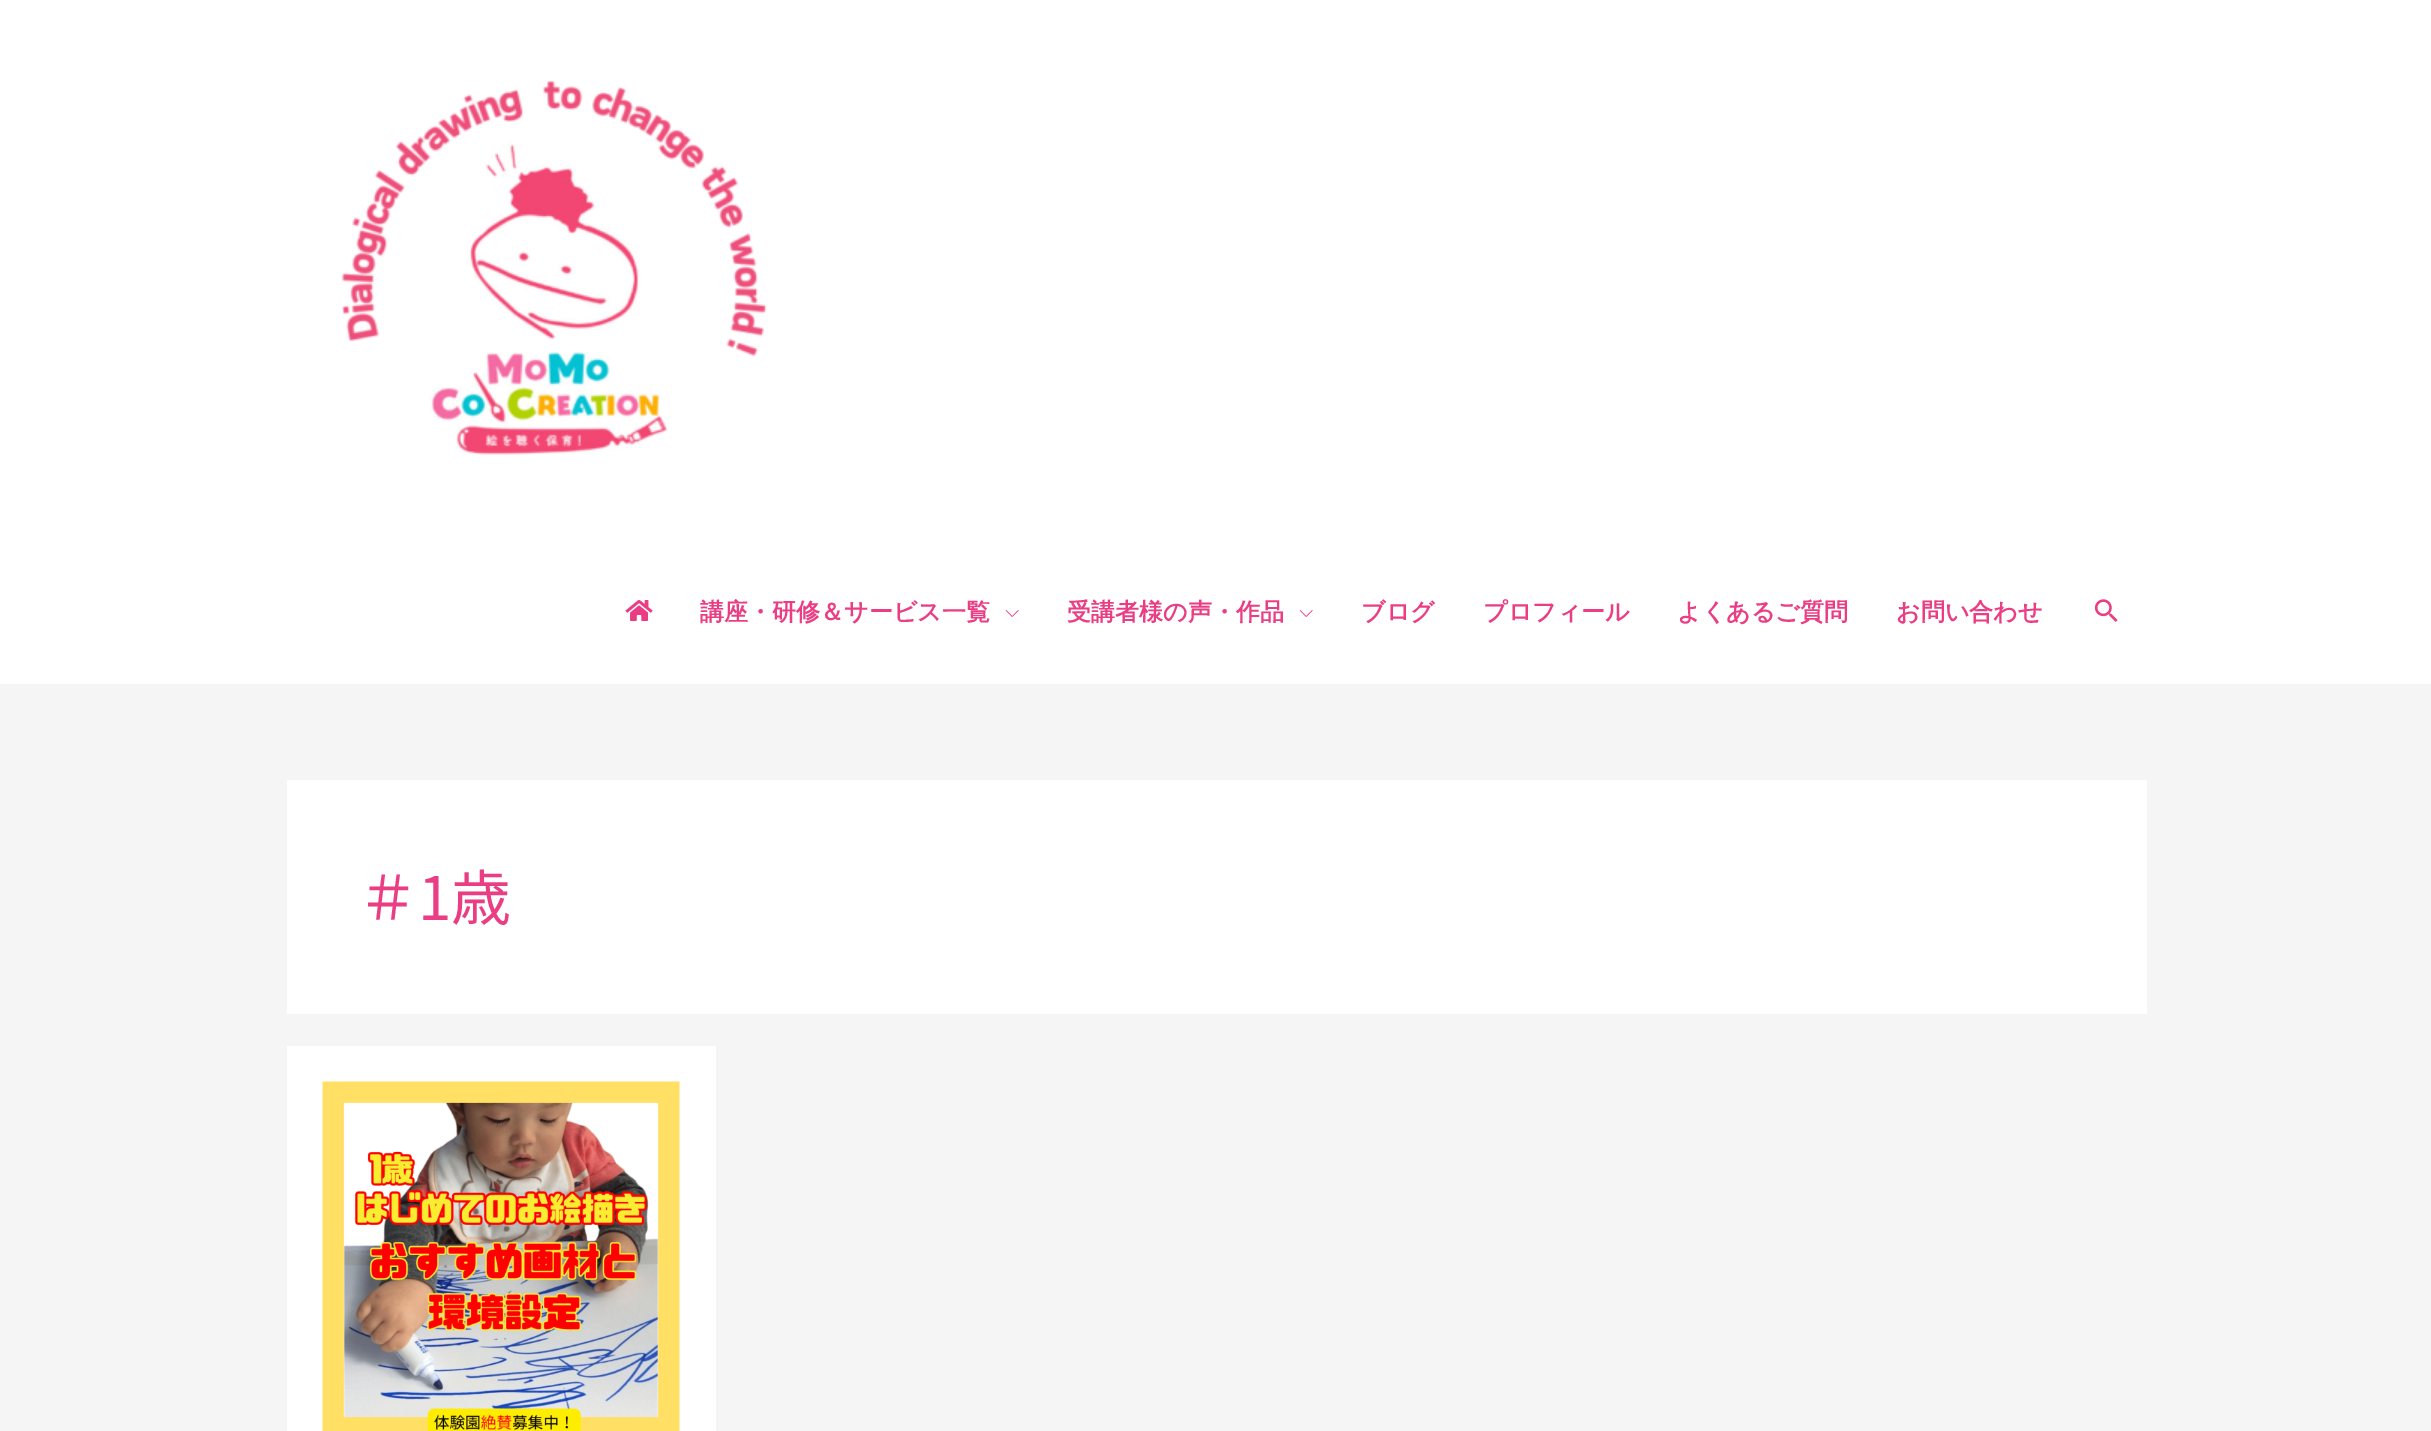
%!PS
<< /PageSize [2431 1431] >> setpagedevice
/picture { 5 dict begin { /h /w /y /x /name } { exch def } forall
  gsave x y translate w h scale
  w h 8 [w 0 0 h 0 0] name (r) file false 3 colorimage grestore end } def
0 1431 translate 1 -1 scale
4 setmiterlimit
0.961 setgray
0 0 2431 1431 rectfill
1 setgray
0 0 2431 684 rectfill
(img1.rgb) 341 80 426 375 picture
(img2.rgb) 625 600 28 21 picture
/WenQuanYiZenHei-Bold [24 0 0 -24 0 0] selectfont
0.918 0.239 0.518 setrgbcolor
700 620 moveto (講座・研修＆サービス一覧) show
(img3.rgb) 1005 610 14 7 picture
1067 620 moveto (受講者様の声・作品) show
(img3.rgb) 1299 610 14 7 picture
1361 620 moveto (ブログ) show
1483 620 moveto (プロフィール) show
1677 620 moveto (よくあるご質問) show
1896 620 moveto (お問い合わせ) show
(img4.rgb) 2094 599 24 23 picture
1 setgray
287 780 1860 234 rectfill
/NotoSansJP-Regular [60 0 0 -60 0 0] selectfont
0.918 0.239 0.518 setrgbcolor
358 920 moveto (＃1歳) show
1 setgray
287 1046 429 385 rectfill
(img5.rgb) 322 1081 358 350 picture
showpage
